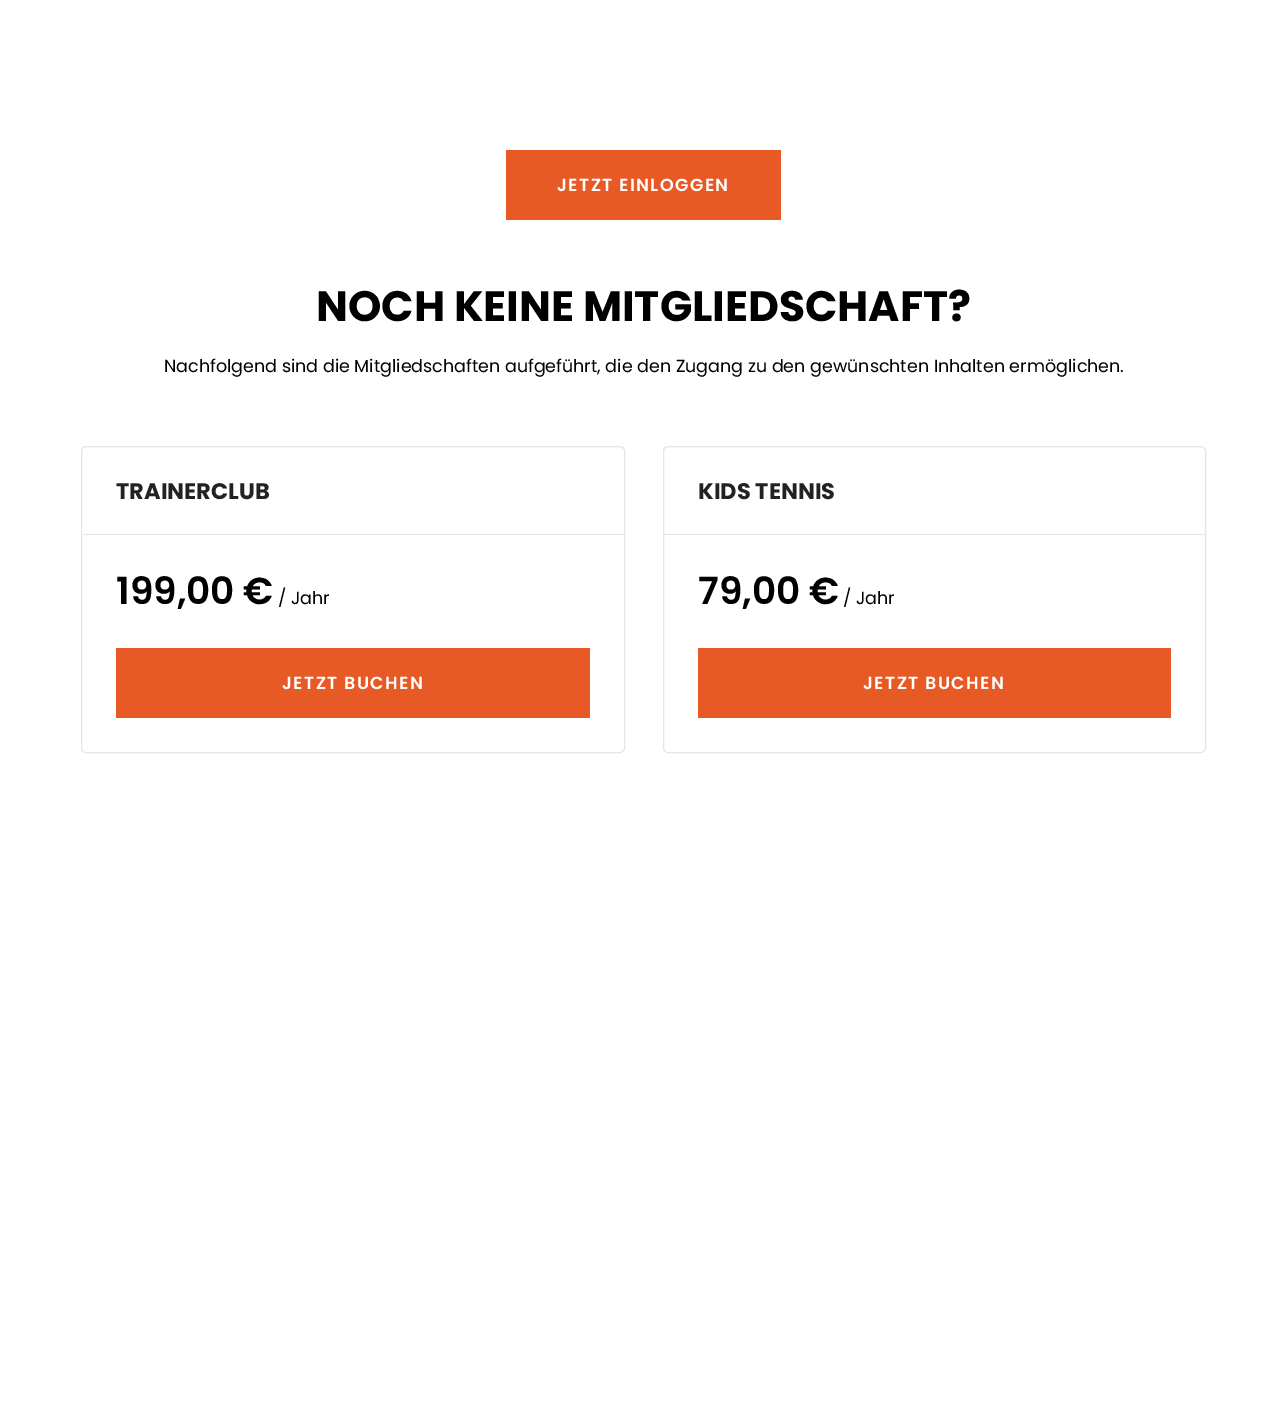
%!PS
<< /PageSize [1287 1418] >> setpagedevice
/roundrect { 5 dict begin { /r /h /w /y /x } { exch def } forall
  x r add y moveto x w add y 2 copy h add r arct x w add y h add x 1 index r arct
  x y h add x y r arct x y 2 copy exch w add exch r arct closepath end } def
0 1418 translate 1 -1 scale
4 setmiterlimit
1 setgray
0 0 1287 1418 rectfill
0.906 0.349 0.145 setrgbcolor
506 150 275 70 rectfill
/Poppins-SemiBold [17.5 0 0 -17.5 0 0] selectfont
1 setgray
557 191 moveto 1.4 0 (JETZT EINLOGGEN) ashow
/Poppins-Bold [42.5 0 0 -42.5 0 0] selectfont
0 setgray
316 321 moveto (NOCH KEINE MITGLIEDSCHAFT?) show
/Poppins-Regular [17.5 0 0 -17.5 0 0] selectfont
164 372 moveto (Nachfolgend sind die Mitgliedschaften aufgeführt, die den Zugang zu den gewünschten Inhalten ermöglichen.) show
0.886 0.906 0.929 setrgbcolor
81.5 446.5 543 306 4.5 roundrect stroke
83 534 541 1 rectfill
/Poppins-Bold [22.5 0 0 -22.5 0 0] selectfont
0.133 setgray
116 499 moveto (TRAINERCLUB) show
/Poppins-SemiBold [37.5 0 0 -37.5 0 0] selectfont
0 setgray
116 604 moveto (199,00 €) show
/Poppins-Regular [17.5 0 0 -17.5 0 0] selectfont
278 604 moveto (/ Jahr) show
0.906 0.349 0.145 setrgbcolor
116 648 474 70 rectfill
/Poppins-SemiBold [17.5 0 0 -17.5 0 0] selectfont
1 setgray
282 689 moveto 1.4 0 (JETZT BUCHEN) ashow
0.886 0.906 0.929 setrgbcolor
663.5 446.5 542 306 4.5 roundrect stroke
664 534 541 1 rectfill
/Poppins-Bold [22.5 0 0 -22.5 0 0] selectfont
0.133 setgray
698 499 moveto (KIDS TENNIS) show
/Poppins-SemiBold [37.5 0 0 -37.5 0 0] selectfont
0 setgray
698 604 moveto (79,00 €) show
/Poppins-Regular [17.5 0 0 -17.5 0 0] selectfont
843 604 moveto (/ Jahr) show
0.906 0.349 0.145 setrgbcolor
698 648 473 70 rectfill
/Poppins-SemiBold [17.5 0 0 -17.5 0 0] selectfont
1 setgray
863 689 moveto 1.4 0 (JETZT BUCHEN) ashow
showpage
